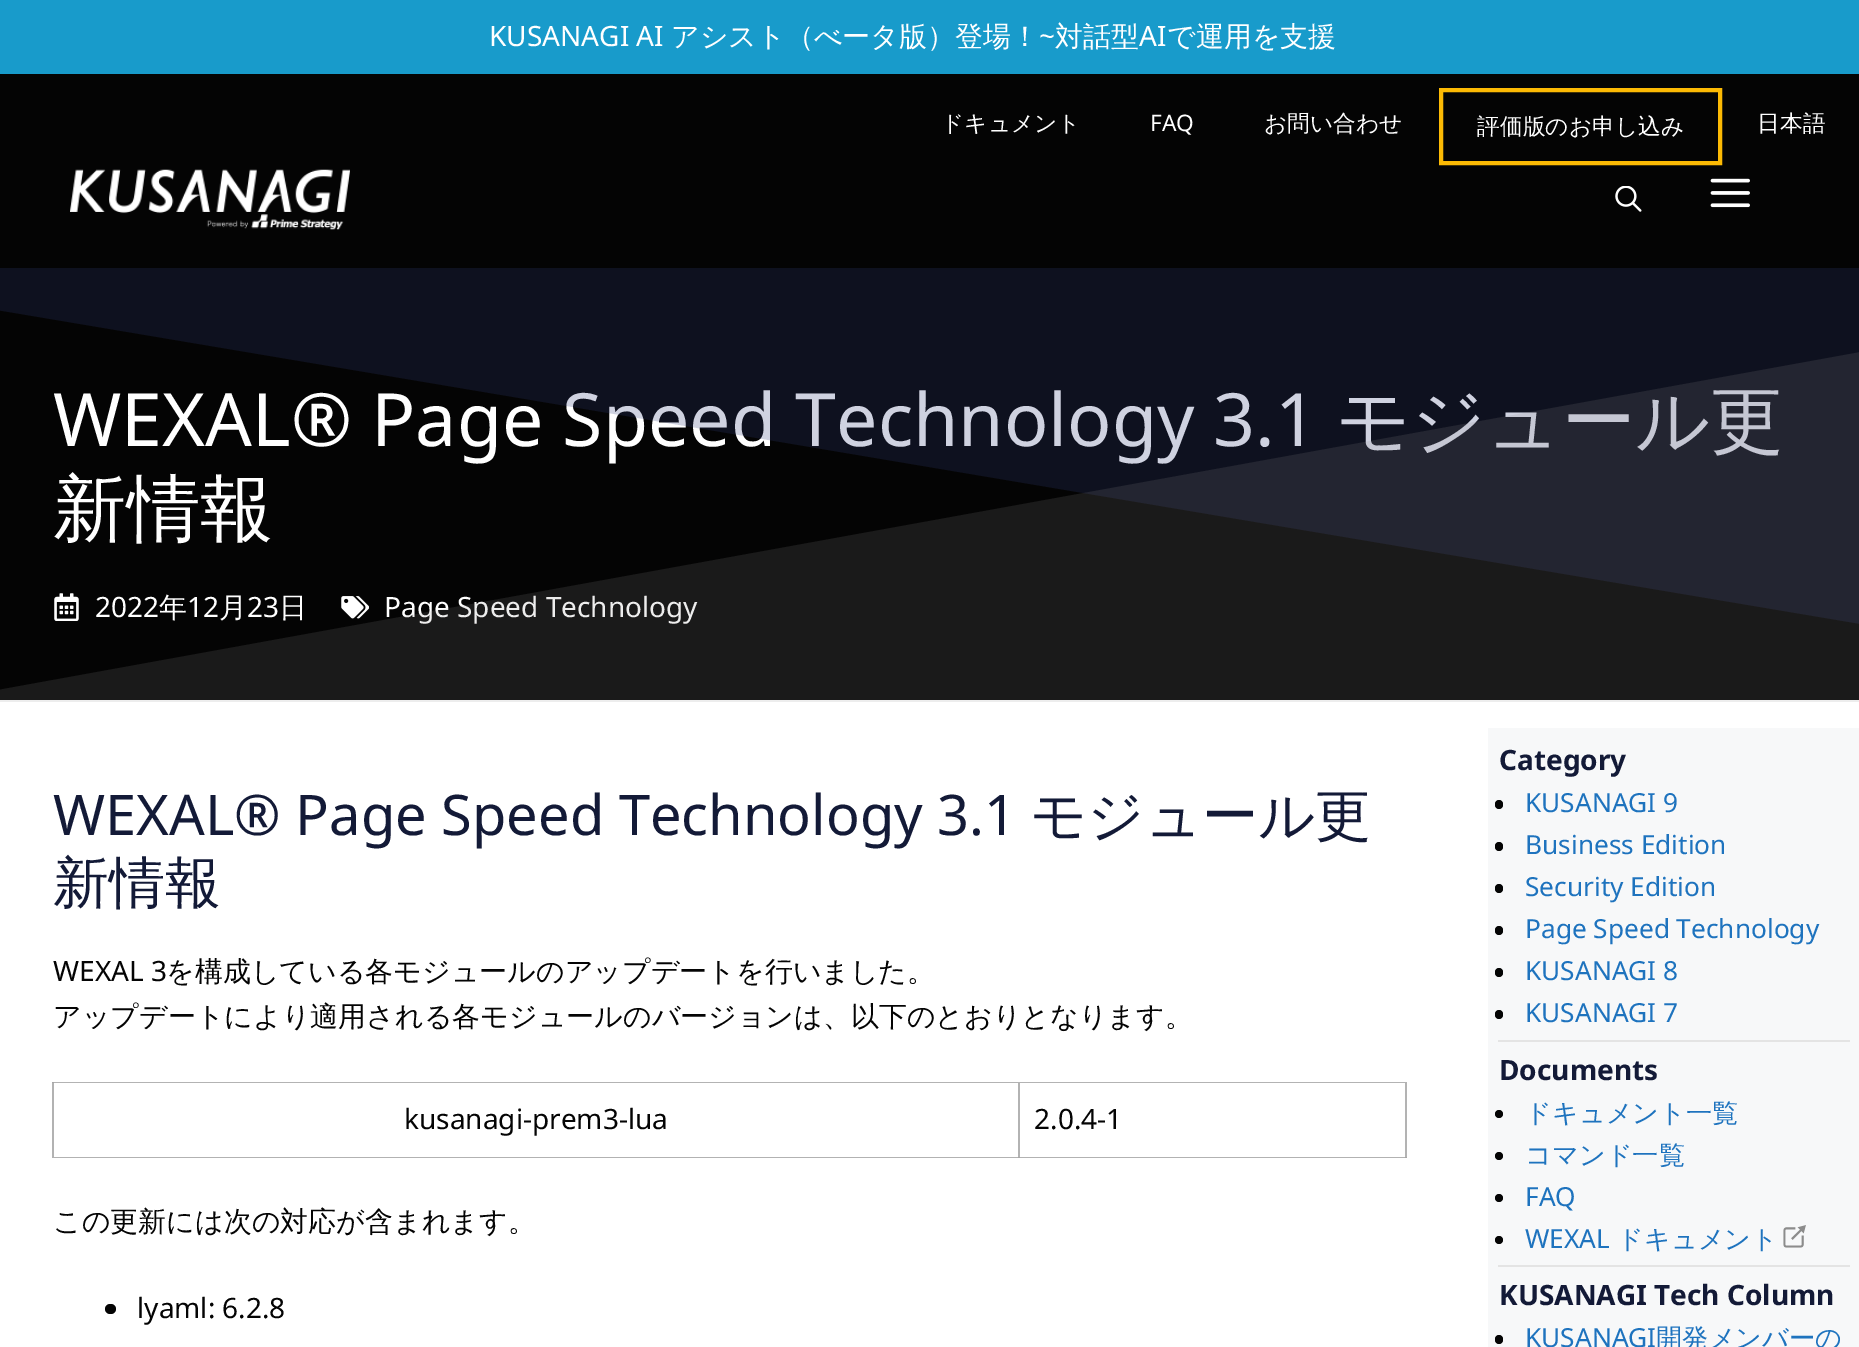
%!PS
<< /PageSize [1859 1347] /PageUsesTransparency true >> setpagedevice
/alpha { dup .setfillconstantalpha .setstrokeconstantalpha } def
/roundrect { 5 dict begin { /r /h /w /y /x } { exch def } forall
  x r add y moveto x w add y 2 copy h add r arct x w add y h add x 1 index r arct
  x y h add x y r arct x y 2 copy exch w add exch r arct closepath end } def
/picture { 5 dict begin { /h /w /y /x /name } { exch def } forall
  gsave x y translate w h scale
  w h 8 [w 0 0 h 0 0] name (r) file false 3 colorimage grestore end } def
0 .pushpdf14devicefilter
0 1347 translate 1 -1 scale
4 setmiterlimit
1 setgray
0 0 1859 1347 rectfill
0.094 0.608 0.796 setrgbcolor
0 0 1859 74 rectfill
/NotoSans-Regular [28 0 0 -28 0 0] selectfont
1 setgray
489 46 moveto (KUSANAGI AI) show
/WenQuanYiZenHei-Medium [28 0 0 -28 0 0] selectfont
671 46 moveto (アシスト（べータ版）登場！) show
/NotoSans-Regular [28 0 0 -28 0 0] selectfont
1039 46 moveto (~) show
/WenQuanYiZenHei-Medium [28 0 0 -28 0 0] selectfont
1055 46 moveto (対話型) show
/NotoSans-Regular [28 0 0 -28 0 0] selectfont
1139 46 moveto (AI) show
/WenQuanYiZenHei-Medium [28 0 0 -28 0 0] selectfont
1167 46 moveto (で運用を支援) show
0.016 setgray
0 74 1859 626 rectfill
/WenQuanYiZenHei-Medium [22.75 0 0 -22.75 0 0] selectfont
1 setgray
941 131 moveto (ドキュメント) show
/NotoSans-Regular [22.75 0 0 -22.75 0 0] selectfont
1150 131 moveto (FAQ) show
/WenQuanYiZenHei-Medium [22.75 0 0 -22.75 0 0] selectfont
1264 131 moveto (お問い合わせ) show
0.988 0.729 0.016 setrgbcolor
4 setlinewidth
1441 90 279 73 rectstroke
1 setgray
1477 134 moveto (評価版のお申し込み) show
1757 131 moveto (日本語) show
(img1.rgb) 70 169 280 61 picture
(img2.rgb) 1615 186 27 26 picture
(img3.rgb) 1710 178 40 30 picture
/NotoSans-Regular [73.5 0 0 -73.5 0 0] selectfont
53 446 moveto (WEXAL® Page Speed Technology 3.1) show
/WenQuanYiZenHei-Medium [73.5 0 0 -73.5 0 0] selectfont
1336 446 moveto (モジュール更) show
53 534 moveto (新情報) show
(img4.rgb) 54 593 25 28 picture
/NotoSans-Regular [28 0 0 -28 0 0] selectfont
95 617 moveto (2022) show
/WenQuanYiZenHei-Medium [28 0 0 -28 0 0] selectfont
159 617 moveto (年) show
/NotoSans-Regular [28 0 0 -28 0 0] selectfont
187 617 moveto (12) show
/WenQuanYiZenHei-Medium [28 0 0 -28 0 0] selectfont
219 617 moveto (月) show
/NotoSans-Regular [28 0 0 -28 0 0] selectfont
247 617 moveto (23) show
/WenQuanYiZenHei-Medium [28 0 0 -28 0 0] selectfont
279 617 moveto (日) show
(img5.rgb) 341 596 28 23 picture
/NotoSans-Regular [28 0 0 -28 0 0] selectfont
384 617 moveto (Page Speed Technology) show
gsave
0 268 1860 388 rectclip
0.23 alpha
0.192 0.235 0.471 setrgbcolor
newpath -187 266 moveto 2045 266 lineto 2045 655 lineto -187 279 lineto closepath fill
grestore
0.16 alpha
0.561 0.553 0.553 setrgbcolor
newpath -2 702 moveto 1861 702 lineto 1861 352 lineto -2 690 lineto closepath fill
/NotoSans-Regular [56 0 0 -56 0 0] selectfont
1 alpha
0.075 0.102 0.216 setrgbcolor
53 835 moveto (WEXAL® Page Speed Technology 3.1) show
/WenQuanYiZenHei-Medium [56 0 0 -56 0 0] selectfont
1030 835 moveto (モジュール更) show
53 902 moveto (新情報) show
/NotoSans-Regular [28 0 0 -28 0 0] selectfont
0.016 setgray
53 981 moveto (WEXAL 3) show
/WenQuanYiZenHei-Medium [28 0 0 -28 0 0] selectfont
166 981 moveto (を構成している各モジュールのアップデートを行いました。) show
53 1026 moveto (アップデートにより適用される各モジュールのバージョンは、以下のとおりとなります。) show
0.702 setgray
newpath 52 1082 moveto 1407 1082 lineto 1407 1083 lineto 54 1083 lineto closepath fill
0.3 alpha
0 setgray
newpath 52 1158 moveto 52 1082 lineto 54 1083 lineto 54 1158 lineto closepath fill
1 alpha
0.702 setgray
newpath 1020 1083 moveto 1020 1158 lineto 1018 1157 lineto 1018 1083 lineto closepath fill
0.3 alpha
0 setgray
newpath 1020 1158 moveto 54 1158 lineto 54 1157 lineto 1018 1157 lineto closepath fill
/NotoSans-Regular [28 0 0 -28 0 0] selectfont
1 alpha
0.016 setgray
404 1129 moveto (kusanagi-prem3-lua) show
0.702 setgray
newpath 1407 1083 moveto 1407 1158 lineto 1405 1157 lineto 1405 1083 lineto closepath fill
0.3 alpha
0 setgray
newpath 1407 1158 moveto 1020 1158 lineto 1020 1157 lineto 1405 1157 lineto closepath fill
1 alpha
0.016 setgray
1034 1129 moveto (2.0.4-1) show
/WenQuanYiZenHei-Medium [28 0 0 -28 0 0] selectfont
53 1231 moveto (この更新には次の対応が含まれます。) show
105 1304 11 10 5 roundrect fill
/NotoSans-Regular [28 0 0 -28 0 0] selectfont
137 1318 moveto (lyaml: 6.2.8) show
0.969 0.973 0.976 setrgbcolor
1488 728 371 619 rectfill
/NotoSans-Bold [28 0 0 -28 0 0] selectfont
0.075 0.102 0.216 setrgbcolor
1499 770 moveto (Category) show
0.016 setgray
1495 800 8 9 4 roundrect fill
/NotoSans-Regular [26.25 0 0 -26.25 0 0] selectfont
0.118 0.451 0.745 setrgbcolor
1525 812 moveto (KUSANAGI 9) show
0.016 setgray
1495 842 8 9 4 roundrect fill
0.118 0.451 0.745 setrgbcolor
1525 854 moveto (Business Edition) show
0.016 setgray
1495 884 8 9 4 roundrect fill
0.118 0.451 0.745 setrgbcolor
1525 896 moveto (Security Edition) show
0.016 setgray
1495 926 8 9 4 roundrect fill
0.118 0.451 0.745 setrgbcolor
1525 938 moveto (Page Speed Technology) show
0.016 setgray
1495 968 8 9 4 roundrect fill
0.118 0.451 0.745 setrgbcolor
1525 980 moveto (KUSANAGI 8) show
0.016 setgray
1495 1010 8 9 4 roundrect fill
0.118 0.451 0.745 setrgbcolor
1525 1022 moveto (KUSANAGI 7) show
0.894 setgray
1498 1040 352 2 rectfill
/NotoSans-Bold [28 0 0 -28 0 0] selectfont
0.075 0.102 0.216 setrgbcolor
1499 1080 moveto (Documents) show
0.016 setgray
newpath 1499 1114 4 0 360 arc closepath fill
/WenQuanYiZenHei-Medium [26.25 0 0 -26.25 0 0] selectfont
0.118 0.451 0.745 setrgbcolor
1525 1122 moveto (ドキュメント一覧) show
0.016 setgray
newpath 1499 1156 4 0 360 arc closepath fill
0.118 0.451 0.745 setrgbcolor
1525 1164 moveto (コマンド一覧) show
0.016 setgray
newpath 1499 1198 4 0 360 arc closepath fill
/NotoSans-Regular [26.25 0 0 -26.25 0 0] selectfont
0.118 0.451 0.745 setrgbcolor
1525 1206 moveto (FAQ) show
0.016 setgray
newpath 1499 1240 4 0 360 arc closepath fill
0.118 0.451 0.745 setrgbcolor
1525 1248 moveto (WEXAL) show
/WenQuanYiZenHei-Medium [26.25 0 0 -26.25 0 0] selectfont
1617 1248 moveto (ドキュメント) show
(img6.rgb) 1783 1225 23 23 picture
0.894 setgray
1498 1265 352 2 rectfill
/NotoSans-Bold [28 0 0 -28 0 0] selectfont
0.075 0.102 0.216 setrgbcolor
1499 1305 moveto (KUSANAGI Tech Column) show
0.016 setgray
1495 1335 8 9 4 roundrect fill
/NotoSans-Regular [26.25 0 0 -26.25 0 0] selectfont
0.118 0.451 0.745 setrgbcolor
1525 1347 moveto (KUSANAGI) show
/WenQuanYiZenHei-Medium [26.25 0 0 -26.25 0 0] selectfont
1656 1347 moveto (開発メンバーの) show
.poppdf14devicefilter showpage
